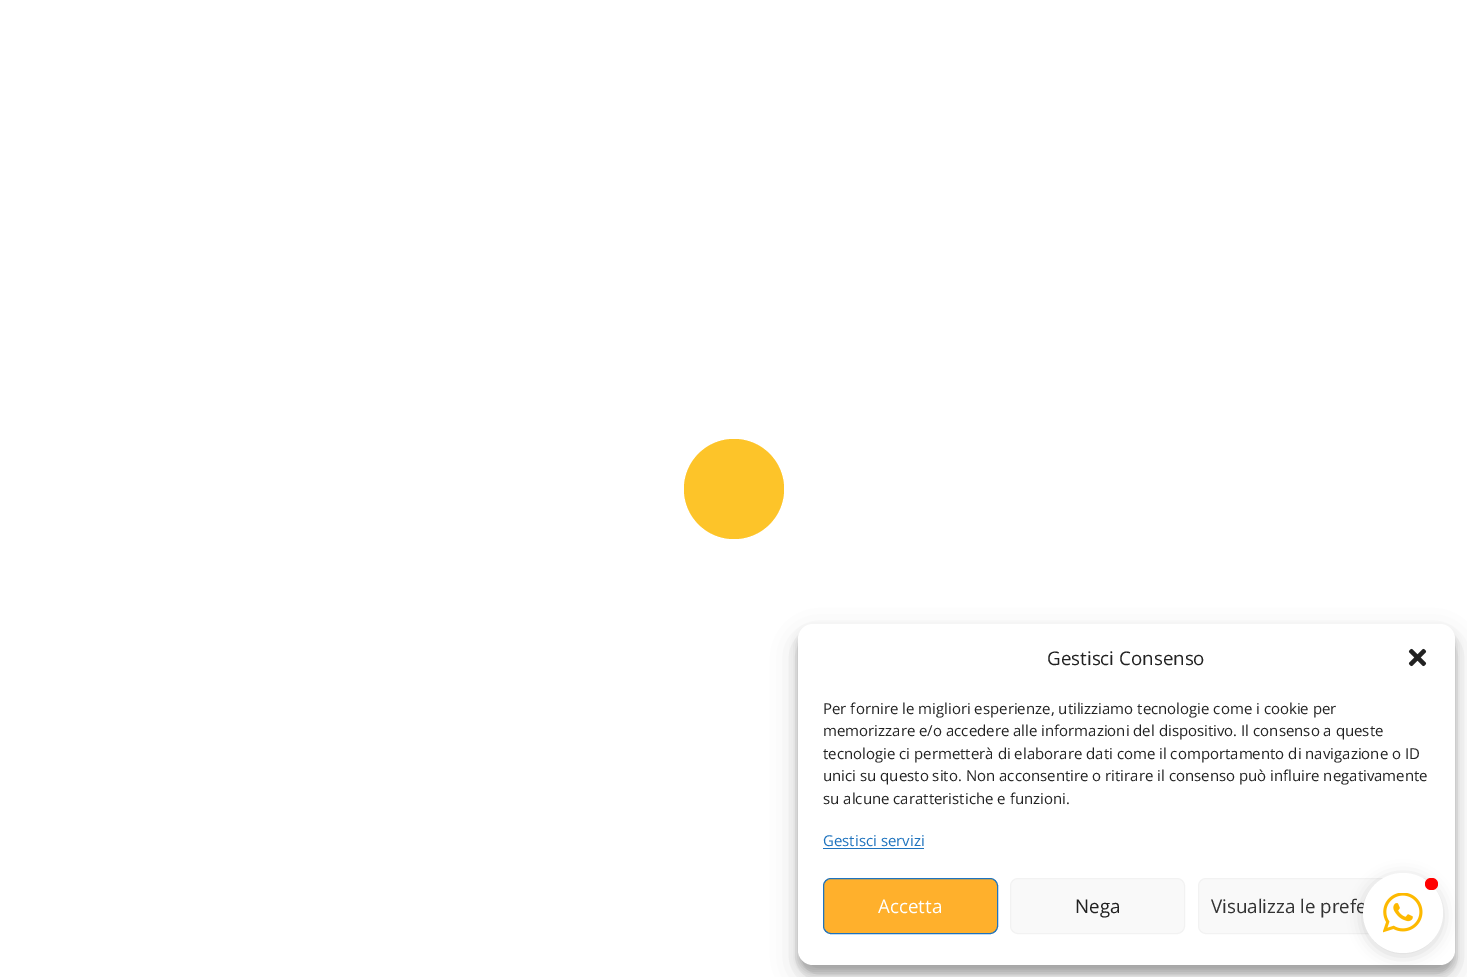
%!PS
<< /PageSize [1467 977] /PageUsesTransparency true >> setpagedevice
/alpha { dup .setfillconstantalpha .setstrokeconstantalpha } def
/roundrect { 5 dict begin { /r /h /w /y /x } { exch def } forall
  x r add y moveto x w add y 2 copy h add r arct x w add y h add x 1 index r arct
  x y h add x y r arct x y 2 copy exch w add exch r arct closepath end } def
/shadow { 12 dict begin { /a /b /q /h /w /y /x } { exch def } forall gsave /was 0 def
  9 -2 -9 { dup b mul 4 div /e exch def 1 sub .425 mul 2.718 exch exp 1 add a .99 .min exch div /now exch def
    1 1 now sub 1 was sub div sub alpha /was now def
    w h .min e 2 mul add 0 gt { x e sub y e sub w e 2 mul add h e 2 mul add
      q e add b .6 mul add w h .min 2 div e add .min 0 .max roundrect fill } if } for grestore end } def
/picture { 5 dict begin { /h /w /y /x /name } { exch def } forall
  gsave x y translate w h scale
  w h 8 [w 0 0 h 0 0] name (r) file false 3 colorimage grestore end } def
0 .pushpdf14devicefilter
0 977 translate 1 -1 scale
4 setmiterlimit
1 setgray
0 0 1467 977 rectfill
0.996 0.835 0.4 setrgbcolor
newpath 734 489 50 0 360 arc closepath fill
0.6 alpha
0.992 0.725 0 setrgbcolor
newpath 734 489 50 0 360 arc closepath fill
1 alpha
0 setgray
798 631 657 342 15 4 0.23 shadow
798 636 657 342 15 12.5 0.19 shadow
1 setgray
798 624 657 341 15 roundrect fill
/OpenSans-Regular [18.75 0 0 -18.75 0 0] selectfont
0.133 setgray
1047 665 moveto (Gestisci Consenso) show
(img1.rgb) 1408 648 19 19 picture
/OpenSans-Regular [15 0 0 -15 0 0] selectfont
823 714 moveto (Per fornire le migliori esperienze, utilizziamo tecnologie come i cookie per) show
823 736 moveto (memorizzare e/o accedere alle informazioni del dispositivo. Il consenso a queste) show
823 759 moveto (tecnologie ci permetterà di elaborare dati come il comportamento di navigazione o ID) show
823 781 moveto (unici su questo sito. Non acconsentire o ritirare il consenso può influire negativamente) show
823 804 moveto (su alcune caratteristiche e funzioni.) show
0.118 0.451 0.745 setrgbcolor
823 846 moveto (Gestisci servizi) show
823 848 101 1 rectfill
1 0.69 0.173 setrgbcolor
823.5 878.5 174 55 7.5 roundrect gsave fill grestore
0.118 0.451 0.745 setrgbcolor
stroke
/OpenSans-Regular [18.75 0 0 -18.75 0 0] selectfont
1 setgray
878 913 moveto (Accetta) show
0.976 setgray
1010.5 878.5 174 55 7.5 roundrect gsave fill grestore
0.949 setgray
stroke
0.133 setgray
1075 913 moveto (Nega) show
0.976 setgray
1198.5 878.5 231 55 7.5 roundrect gsave fill grestore
0.949 setgray
stroke
0.2 setgray
1211 913 moveto (Visualizza le prefe) show
0 setgray
1363 876 80 80 40 7.5 0.15 shadow
1 setgray
newpath 1403 913 40 0 360 arc closepath fill
1 0 0 setrgbcolor
1425 878 13 12 6 roundrect fill
(img2.rgb) 1383 893 40 40 picture
.poppdf14devicefilter showpage
